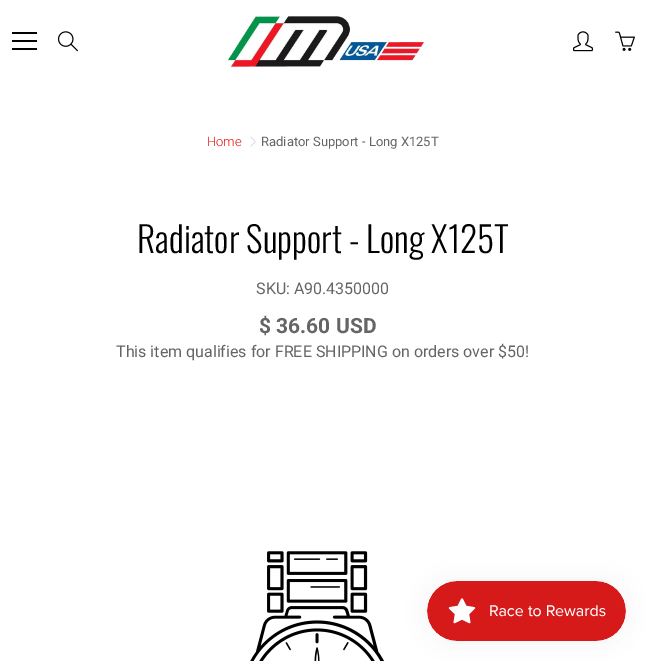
%!PS
<< /PageSize [646 661] /PageUsesTransparency true >> setpagedevice
/alpha { dup .setfillconstantalpha .setstrokeconstantalpha } def
/roundrect { 5 dict begin { /r /h /w /y /x } { exch def } forall
  x r add y moveto x w add y 2 copy h add r arct x w add y h add x 1 index r arct
  x y h add x y r arct x y 2 copy exch w add exch r arct closepath end } def
/shadow { 12 dict begin { /a /b /q /h /w /y /x } { exch def } forall gsave /was 0 def
  9 -2 -9 { dup b mul 4 div /e exch def 1 sub .425 mul 2.718 exch exp 1 add a .99 .min exch div /now exch def
    1 1 now sub 1 was sub div sub alpha /was now def
    w h .min e 2 mul add 0 gt { x e sub y e sub w e 2 mul add h e 2 mul add
      q e add b .6 mul add w h .min 2 div e add .min 0 .max roundrect fill } if } for grestore end } def
/picture { 5 dict begin { /h /w /y /x /name } { exch def } forall
  gsave x y translate w h scale
  w h 8 [w 0 0 h 0 0] name (r) file false 3 colorimage grestore end } def
0 .pushpdf14devicefilter
0 661 translate 1 -1 scale
4 setmiterlimit
1 setgray
0 0 646 661 rectfill
0 setgray
12 40 25 2 rectfill
12 32 25 2 rectfill
12 48 25 2 rectfill
(img1.rgb) 58 31 20 21 picture
(img2.rgb) 228 16 196 51 picture
(img3.rgb) 573 31 20 21 picture
(img4.rgb) 615 31 20 20 picture
/Roboto-Light [13 0 0 -13 0 0] selectfont
0.906 0.051 0.051 setrgbcolor
207 146 moveto (Home) show
(img5.rgb) 250 136 6 11 picture
/Roboto-Regular [13 0 0 -13 0 0] selectfont
0.4 0.396 0.396 setrgbcolor
261 146 moveto (Radiator Support - Long X125T) show
/Oswald-Light [35.5 0 0 -35.5 0 0] selectfont
0 setgray
137 253 moveto (Radiator Support - Long X125T) show
/Roboto-Regular [16 0 0 -16 0 0] selectfont
0.4 0.396 0.396 setrgbcolor
256 294 moveto (SKU: A90.4350000) show
/Roboto-Bold [21 0 0 -21 0 0] selectfont
259 333 moveto ($ 36.60 USD) show
/Roboto-Regular [16 0 0 -16 0 0] selectfont
116 357 moveto (This item qualifies for FREE SHIPPING on orders over $50!) show
(img6.rgb) 250 551 134 110 picture
0 setgray
427 581 199 60 30 12.5 0.05 shadow
(img7.rgb) 427 581 199 60 picture
.poppdf14devicefilter showpage
